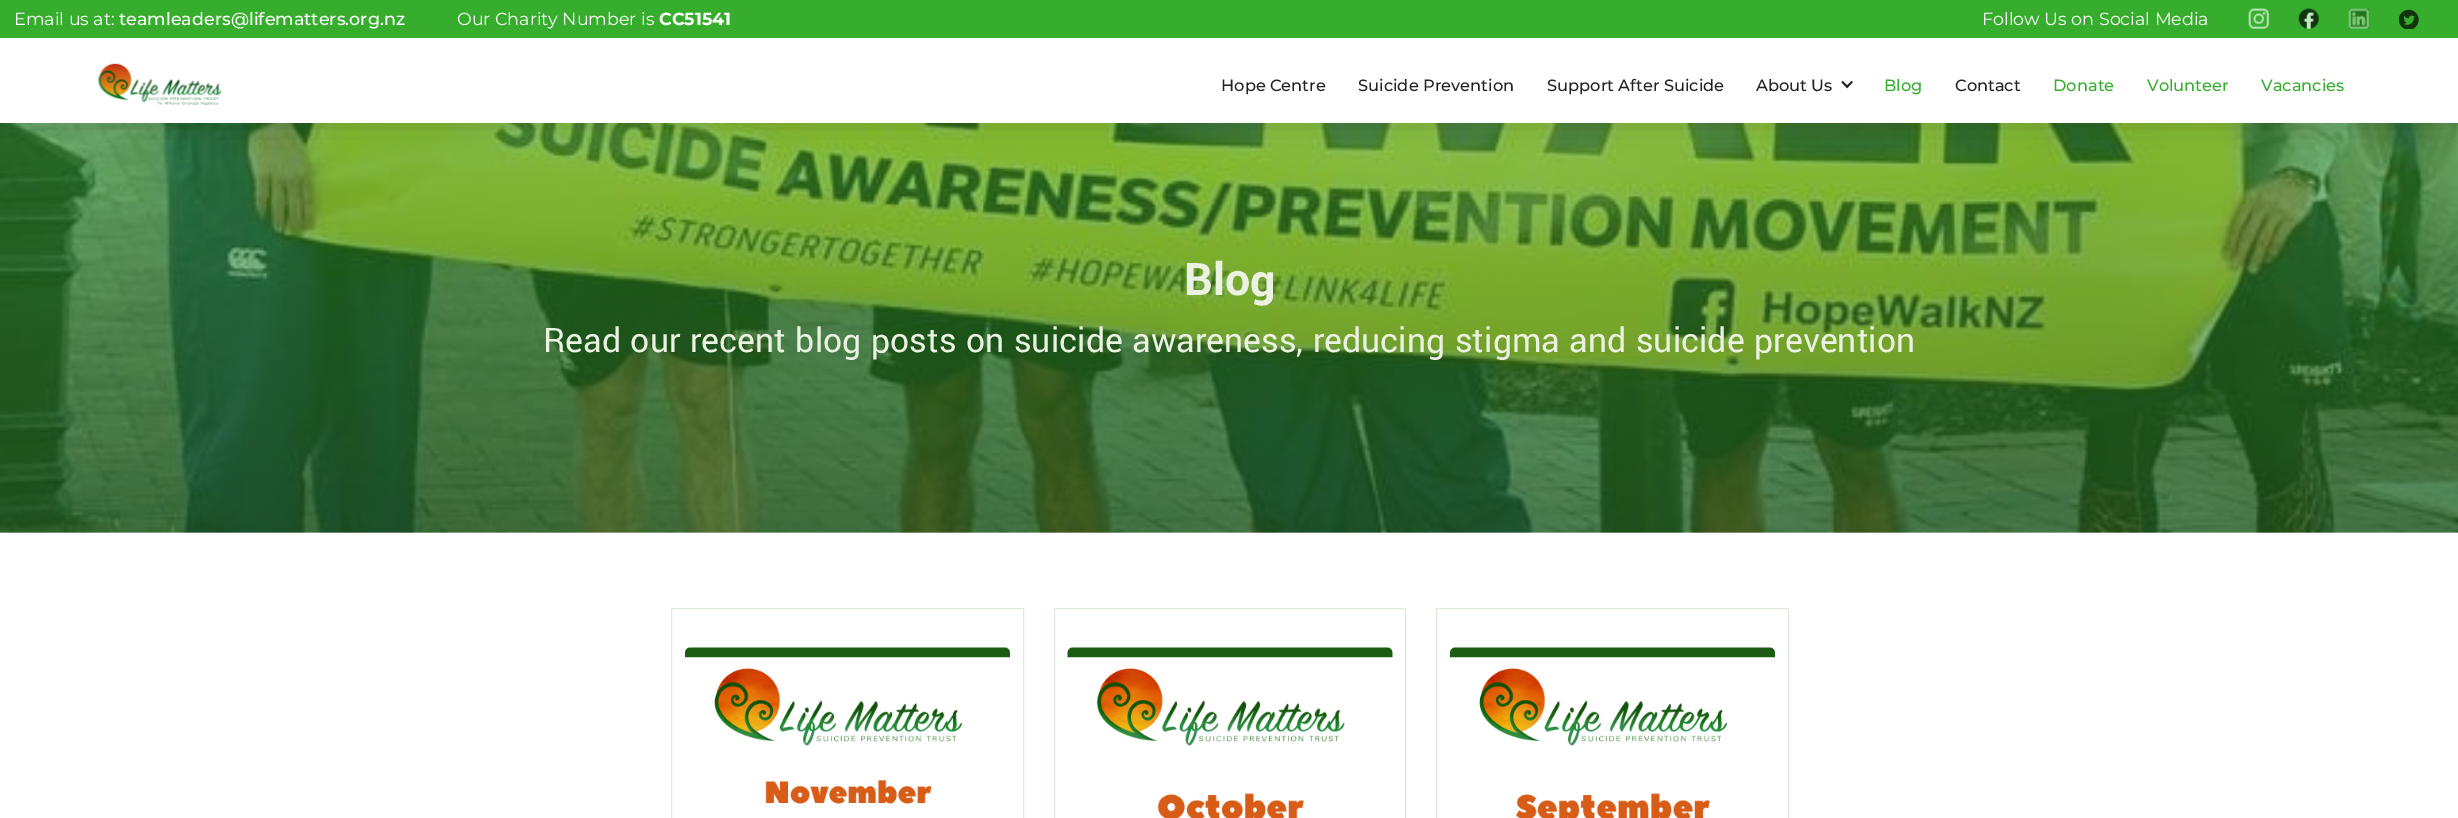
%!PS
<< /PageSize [2458 818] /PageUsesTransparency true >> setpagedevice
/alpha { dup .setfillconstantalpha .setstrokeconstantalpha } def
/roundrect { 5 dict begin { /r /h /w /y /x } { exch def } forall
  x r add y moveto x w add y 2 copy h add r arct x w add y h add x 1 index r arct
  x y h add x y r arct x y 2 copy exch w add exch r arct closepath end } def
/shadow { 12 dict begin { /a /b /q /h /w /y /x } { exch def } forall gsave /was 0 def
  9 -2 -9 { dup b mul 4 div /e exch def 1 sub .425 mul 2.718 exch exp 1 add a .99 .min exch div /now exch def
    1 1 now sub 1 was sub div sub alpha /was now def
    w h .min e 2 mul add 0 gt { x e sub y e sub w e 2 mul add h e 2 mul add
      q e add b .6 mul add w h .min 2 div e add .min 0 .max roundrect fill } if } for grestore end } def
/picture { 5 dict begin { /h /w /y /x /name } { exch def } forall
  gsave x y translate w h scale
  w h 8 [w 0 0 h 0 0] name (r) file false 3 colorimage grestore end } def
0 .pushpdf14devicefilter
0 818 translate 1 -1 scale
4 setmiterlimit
1 setgray
0 0 2458 818 rectfill
(img7.rgb) 0 123 2458 410 picture
0 setgray
6 6 2447 110 0 19 0.28 shadow
1 setgray
0 38 2458 85 rectfill
0.216 0.678 0.176 setrgbcolor
0 0 2458 38 rectfill
/Montserrat-Regular [17.5 0 0 -17.5 0 0] selectfont
1 setgray
14 25 moveto (Email us at:) show
/Montserrat-Medium [17.5 0 0 -17.5 0 0] selectfont
119 25 moveto (teamleaders@lifematters.org.nz) show
/Montserrat-Regular [17.5 0 0 -17.5 0 0] selectfont
457 25 moveto (Our Charity Number is) show
/Montserrat-Bold [17.5 0 0 -17.5 0 0] selectfont
659 25 moveto (CC51541) show
/Montserrat-Regular [17.5 0 0 -17.5 0 0] selectfont
1982 25 moveto (Follow Us on Social Media) show
(img1.rgb) 2248 8 21 21 picture
(img2.rgb) 2298 8 21 21 picture
(img3.rgb) 2348 8 21 21 picture
(img4.rgb) 2399 9 20 20 picture
(img5.rgb) 98 63 124 42 picture
/Montserrat-Medium [16.25 0 0 -16.25 0 0] selectfont
0.133 setgray
1221 91 moveto (Hope Centre) show
1358 91 moveto (Suicide Prevention) show
1547 91 moveto (Support After Suicide) show
1756 91 moveto (About Us) show
(img6.rgb) 1841 80 12 9 picture
0.216 0.678 0.176 setrgbcolor
1884 91 moveto (Blog) show
0.133 setgray
1955 91 moveto (Contact) show
0.216 0.678 0.176 setrgbcolor
2053 91 moveto (Donate) show
2147 91 moveto (Volunteer) show
2261 91 moveto (Vacancies) show
/Yantramanav-Bold [50 0 0 -50 0 0] selectfont
0.922 0.949 0.886 setrgbcolor
1184 295 moveto (Blog) show
/Yantramanav-Regular [37.5 0 0 -37.5 0 0] selectfont
543 352 moveto (Read our recent blog posts on suicide awareness, reducing stigma and suicide prevention) show
0.871 0.918 0.867 setrgbcolor
671.5 608.5 352 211 0.5 roundrect stroke
(img8.rgb) 684 647 326 157 picture
1054.5 608.5 351 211 0.5 roundrect stroke
(img9.rgb) 1067 647 326 171 picture
1436.5 608.5 352 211 0.5 roundrect stroke
(img10.rgb) 1449 647 326 171 picture
.poppdf14devicefilter showpage
